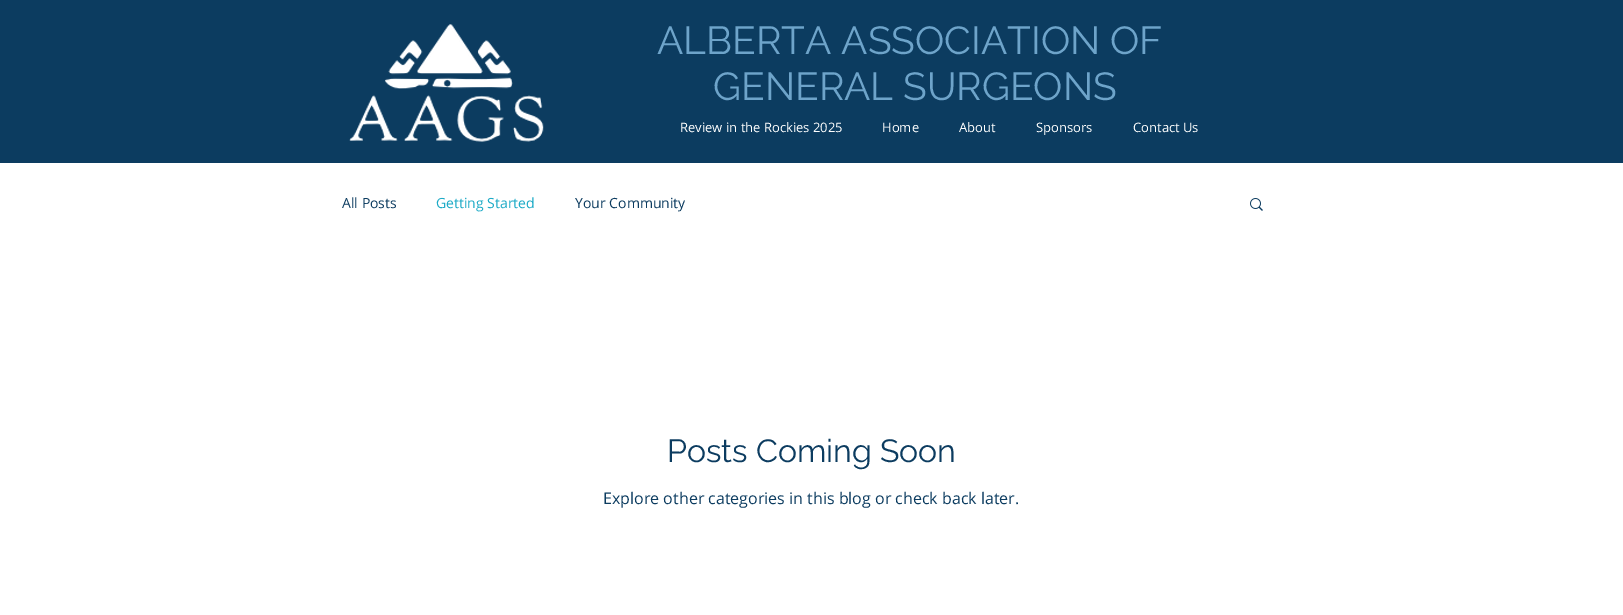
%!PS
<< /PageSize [1623 615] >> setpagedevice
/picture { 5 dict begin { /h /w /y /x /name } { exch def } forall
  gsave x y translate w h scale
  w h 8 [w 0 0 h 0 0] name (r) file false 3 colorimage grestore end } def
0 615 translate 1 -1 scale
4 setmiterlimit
1 setgray
0 0 1623 615 rectfill
0.047 0.235 0.376 setrgbcolor
0 0 1623 163 rectfill
(img1.rgb) 349 24 195 118 picture
/Raleway-Regular [39 0 0 -39 0 0] selectfont
0.431 0.643 0.792 setrgbcolor
657 54 moveto (ALBERTA ASSOCIATION OF) show
713 100 moveto (GENERAL SURGEONS) show
/OpenSans-Regular [13 0 0 -13 0 0] selectfont
1 setgray
680 132 moveto (Review in the Rockies 2025) show
882 132 moveto (Home) show
959 132 moveto (About) show
1036 132 moveto (Sponsors) show
1133 132 moveto (Contact Us) show
/OpenSans-Regular [14 0 0 -14 0 0] selectfont
0.047 0.235 0.376 setrgbcolor
342 208 moveto (All Posts) show
0.118 0.671 0.78 setrgbcolor
436 208 moveto (Getting Started) show
0.047 0.235 0.376 setrgbcolor
575 208 moveto (Your Community) show
(img2.rgb) 1250 198 13 13 picture
/Raleway-Regular [32 0 0 -32 0 0] selectfont
667 462 moveto (Posts Coming Soon) show
/OpenSans-Regular [16 0 0 -16 0 0] selectfont
603 504 moveto (Explore other categories in this blog or check back later.) show
showpage
